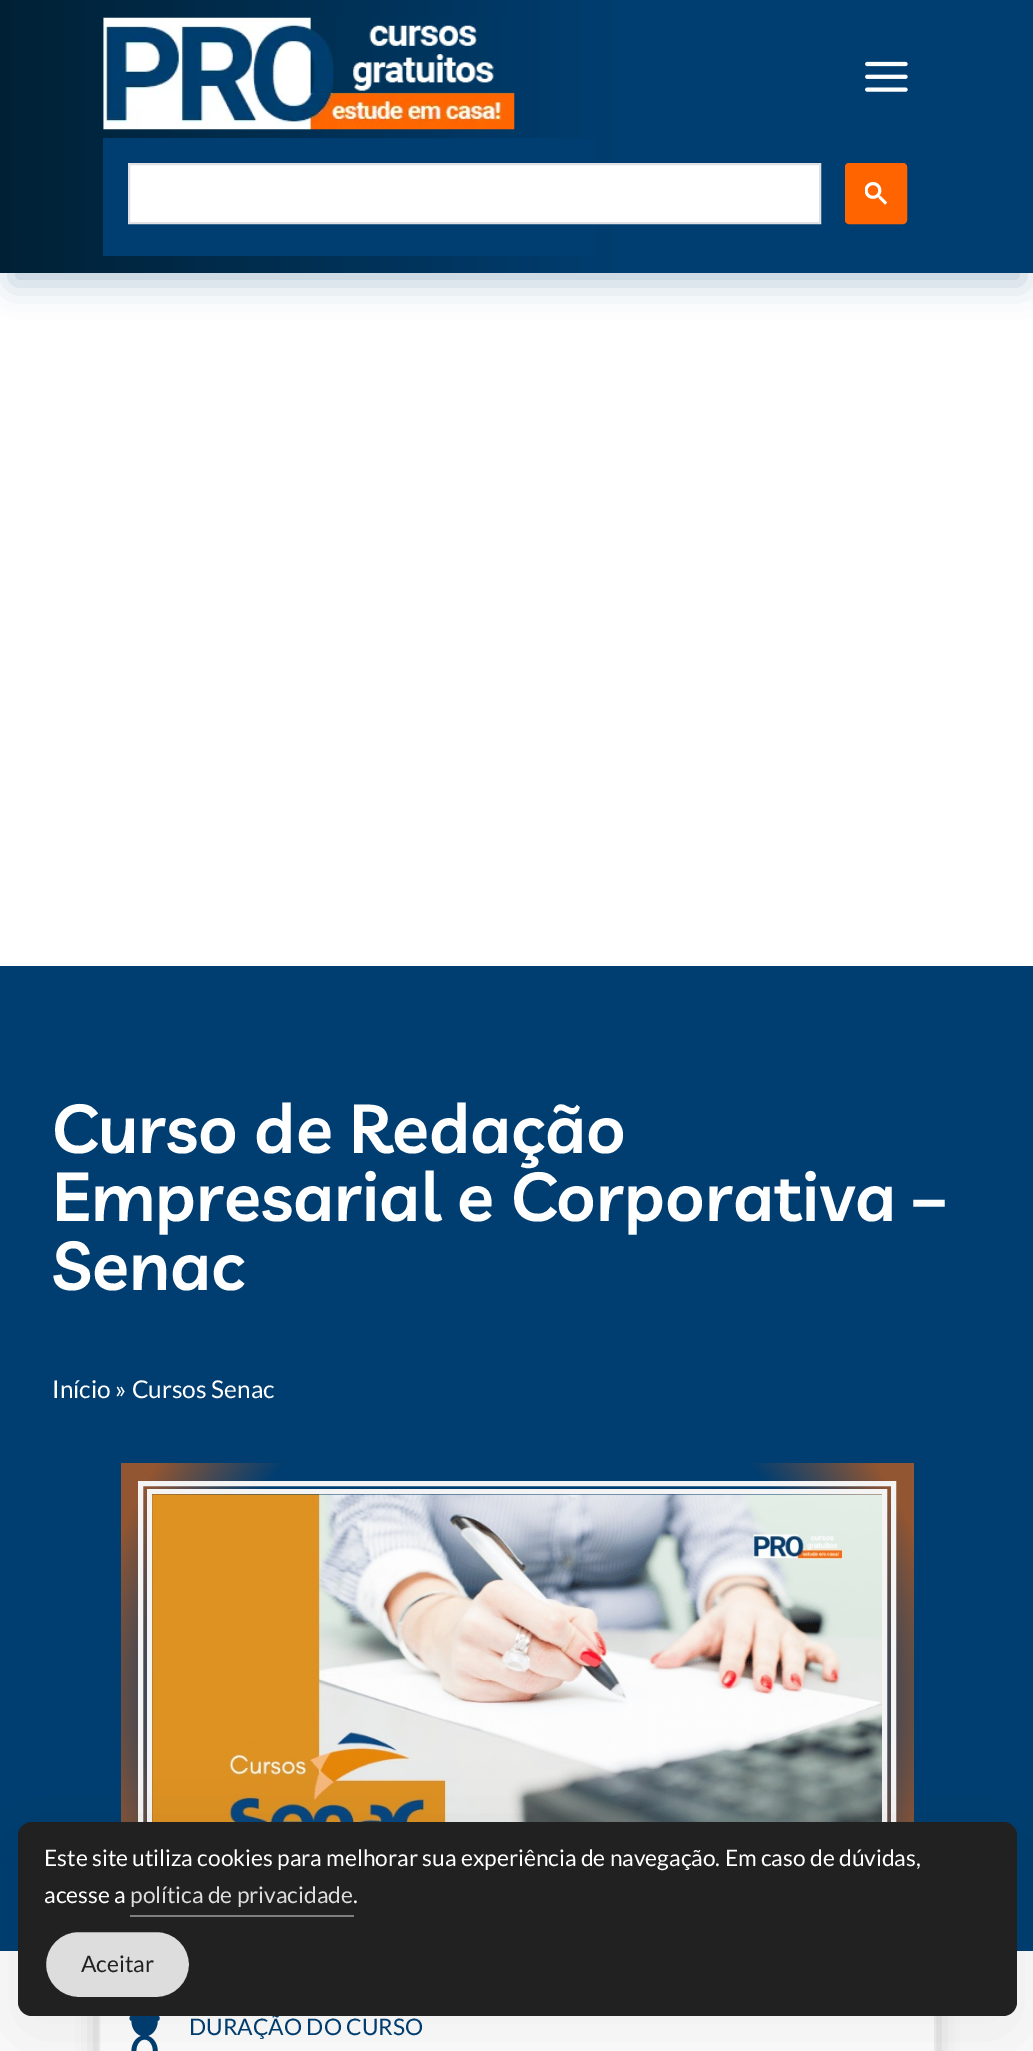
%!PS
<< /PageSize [1033 2051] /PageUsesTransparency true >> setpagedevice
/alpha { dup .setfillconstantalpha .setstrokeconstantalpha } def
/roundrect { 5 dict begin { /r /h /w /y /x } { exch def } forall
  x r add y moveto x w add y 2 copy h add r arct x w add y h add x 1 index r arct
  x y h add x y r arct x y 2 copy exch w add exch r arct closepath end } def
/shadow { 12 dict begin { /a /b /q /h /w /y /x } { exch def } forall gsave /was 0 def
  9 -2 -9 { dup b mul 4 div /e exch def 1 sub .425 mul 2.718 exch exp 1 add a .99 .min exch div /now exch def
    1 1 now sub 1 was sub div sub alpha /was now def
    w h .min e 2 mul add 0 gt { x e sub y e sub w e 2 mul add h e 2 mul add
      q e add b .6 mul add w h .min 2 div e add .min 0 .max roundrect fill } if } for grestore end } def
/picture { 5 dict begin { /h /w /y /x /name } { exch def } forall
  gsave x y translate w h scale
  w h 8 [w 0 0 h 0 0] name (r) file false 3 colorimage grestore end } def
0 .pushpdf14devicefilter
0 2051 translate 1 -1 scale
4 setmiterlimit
1 setgray
0 0 1033 2051 rectfill
0 0.243 0.443 setrgbcolor
11 32 1013 252 0 16 0.27 shadow
gsave newpath 0 0 moveto 1033 0 lineto 1033 273 lineto 0 273 lineto closepath clip newpath
<< /ShadingType 2 /ColorSpace /DeviceRGB /Coords [0 137 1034 136] /Extend [true true] /Function << /FunctionType 3 /Domain [0 1] /Functions [<< /FunctionType 2 /Domain [0 1] /C0 [0 0.129 0.208] /C1 [0 0.243 0.443] /N 1 >> << /FunctionType 2 /Domain [0 1] /C0 [0 0.243 0.443] /C1 [0 0.243 0.443] /N 1 >>] /Bounds [0.6] /Encode [0 1 0 1] >> >> shfill grestore
(img1.rgb) 103 17 412 113 picture
(img2.rgb) 865 61 43 31 picture
103 138 492 118 rectfill
1 setgray
newpath 129 164 moveto 820 164 lineto 820 223 lineto 129 223 lineto closepath gsave fill grestore
0.875 0.882 0.898 setrgbcolor
2 setlinewidth
stroke
1 0.392 0 setrgbcolor
846 164 60 59 3 roundrect gsave fill grestore
stroke
(img3.rgb) 865 182 22 23 picture
0.988 setgray
0 1951 1033 100 rectfill
0.447 setgray
102 1790 831 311 14 12 0.51 shadow
1 setgray
100 2016 834 35 rectfill
0.937 setgray
99 1784 836 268 rectstroke
0 0.243 0.443 setrgbcolor
0 966 1033 985 rectfill
/Livvic-SemiBold [68.25 0 0 -68.25 0 0] selectfont
1 setgray
52 1153 moveto (Curso de Redação) show
52 1221 moveto (Empresarial e Corporativa –) show
52 1290 moveto (Senac) show
/Lato-Regular [24.5 0 0 -24.5 0 0] selectfont
52 1398 moveto (Início » Cursos Senac) show
gsave newpath 121 1463 moveto 914 1463 lineto 914 1822 lineto 121 1822 lineto closepath clip newpath 517 1694 translate 459 459 scale
<< /ShadingType 3 /ColorSpace /DeviceRGB /Coords [0 0 0 0 0 1] /Extend [true true] /Function << /FunctionType 3 /Domain [0 1] /Functions [<< /FunctionType 2 /Domain [0 1] /C0 [0 0.243 0.443] /C1 [0 0.243 0.443] /N 1 >> << /FunctionType 2 /Domain [0 1] /C0 [0 0.243 0.443] /C1 [0.576 0.337 0.196] /N 1 >> << /FunctionType 2 /Domain [0 1] /C0 [0.576 0.337 0.196] /C1 [0.576 0.337 0.196] /N 1 >>] /Bounds [0.71 0.93] /Encode [0 1 0 1 0 1] >> >> shfill grestore
0.957 setgray
5 setlinewidth
140.5 1483.5 753 422 rectstroke
149.5 1491.5 735 405 rectstroke
(img4.rgb) 152 1494 730 328 picture
(img5.rgb) 129 2016 31 35 picture
/Lato-Regular [22.75 0 0 -22.75 0 0] selectfont
0 0.243 0.443 setrgbcolor
189 2035 moveto (DURAÇÃO DO CURSO) show
0 setgray
0 1822 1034 229 32 35 0.05 shadow
0.129 setgray
18 1822 999 194 14 roundrect fill
1 setgray
44 1866 moveto (Este site utiliza cookies para melhorar sua experiência de navegação. Em caso de dúvidas,) show
44 1903 moveto (acesse a) show
0.867 setgray
130 1903 moveto (política de privacidade) show
0.498 setgray
130 1915 224 2 rectfill
1 setgray
353 1903 moveto (.) show
0.867 setgray
45 1931 145 67 33.5 roundrect gsave fill grestore
0.129 setgray
2 setlinewidth
stroke
81 1972 moveto (Aceitar) show
.poppdf14devicefilter showpage
